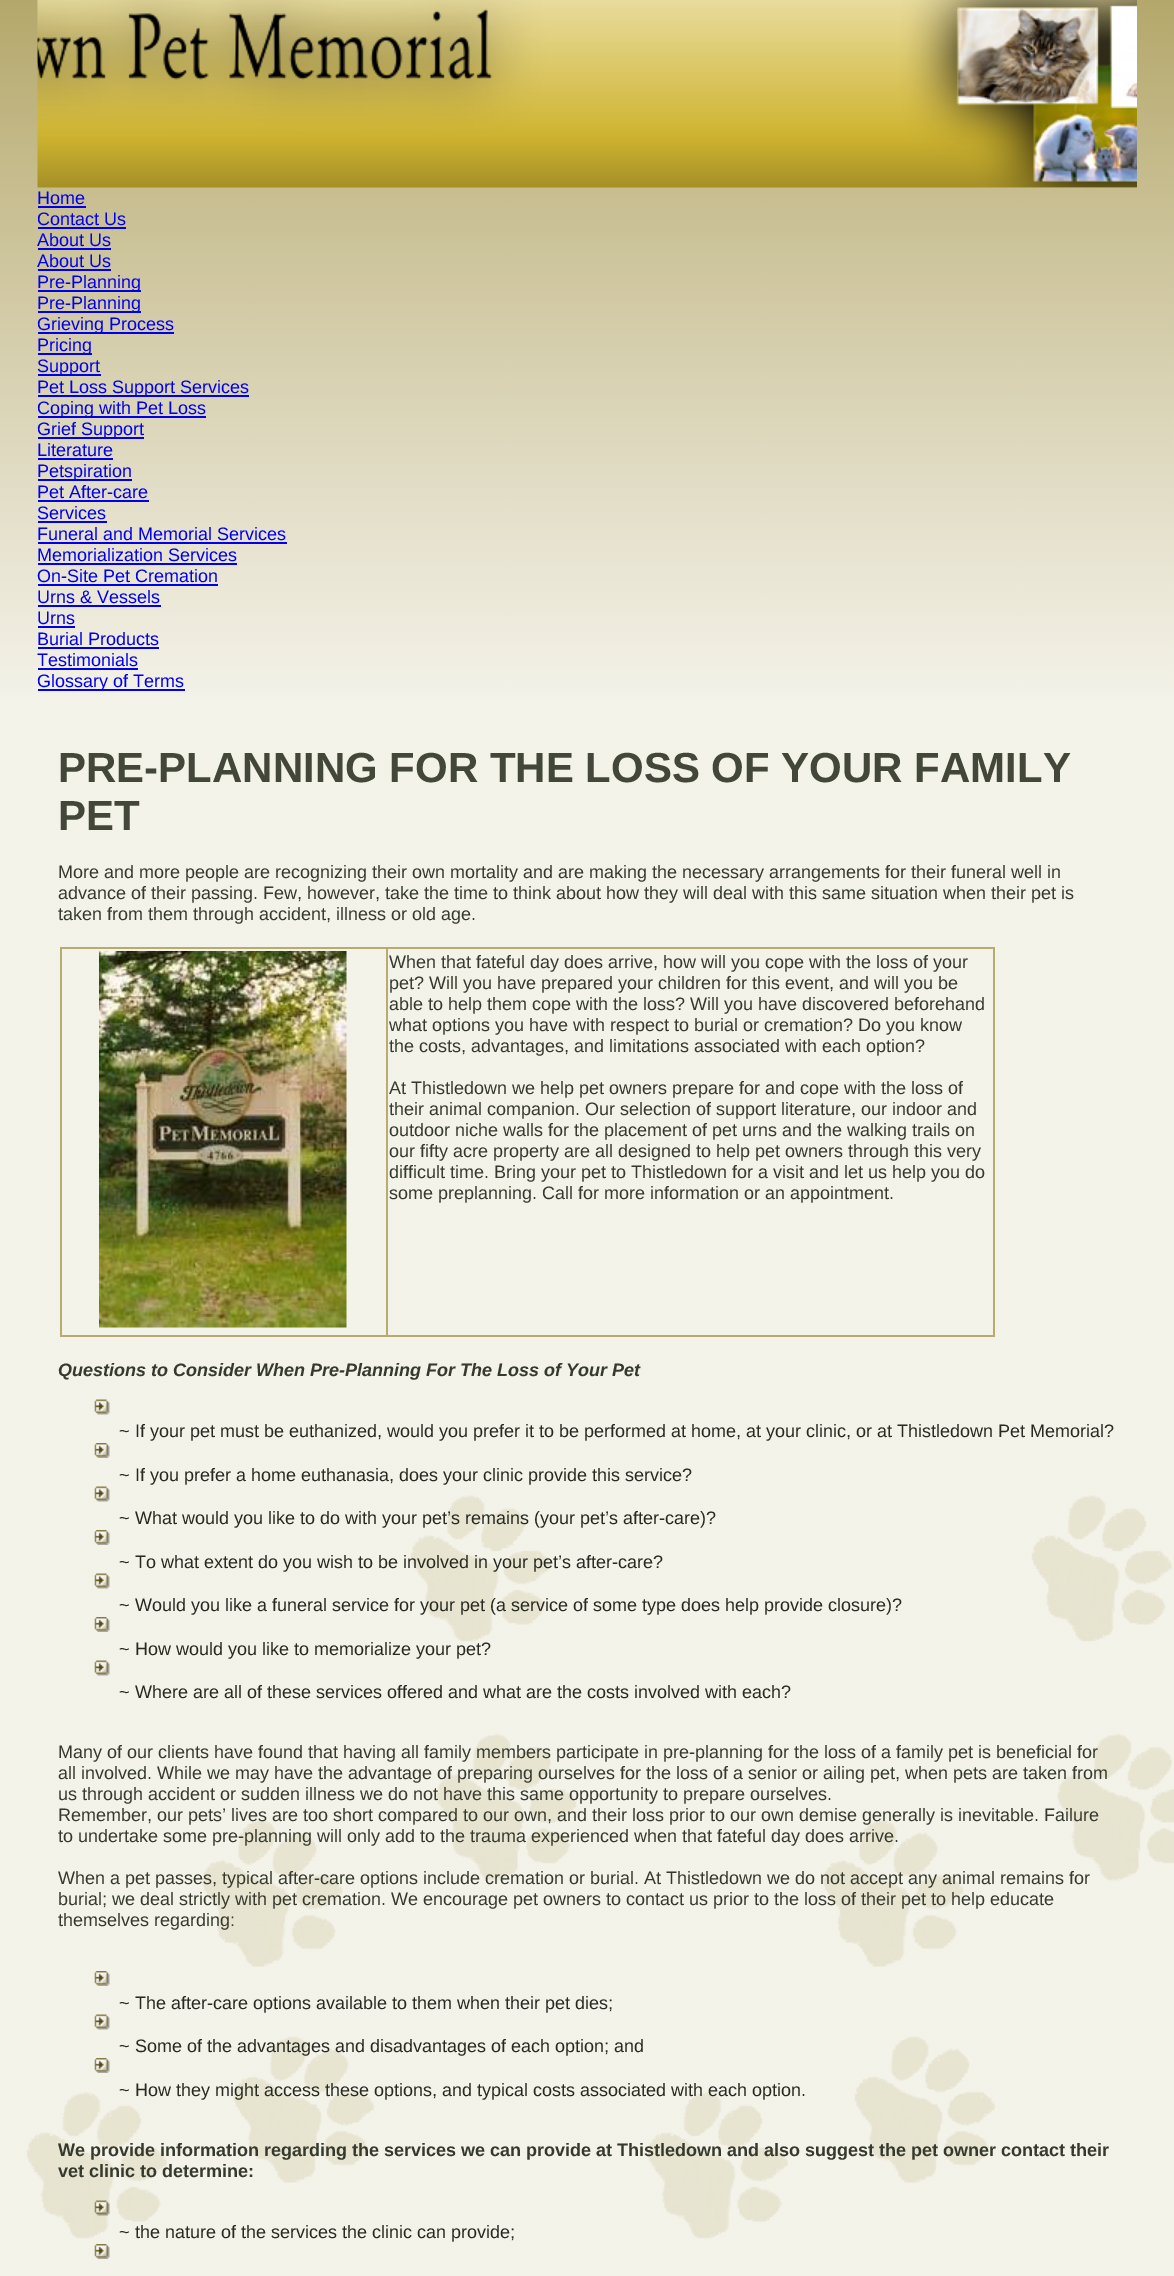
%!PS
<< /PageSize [1174 2276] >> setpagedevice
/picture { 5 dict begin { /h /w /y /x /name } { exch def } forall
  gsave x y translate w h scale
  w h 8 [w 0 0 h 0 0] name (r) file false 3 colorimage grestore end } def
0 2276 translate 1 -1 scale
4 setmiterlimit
1 setgray
0 0 1174 2276 rectfill
(img1.rgb) 0 0 1174 2276 picture
(img2.rgb) 37 0 1100 188 picture
(img3.rgb) 37 0 1100 188 picture
/LiberationSans-Regular [18 0 0 -18 0 0] selectfont
0 0 0.933 setrgbcolor
37 204 moveto (Home) show
38 206 48 2 rectfill
37 225 moveto (Contact Us) show
38 227 88 2 rectfill
37 246 moveto (About Us) show
38 248 73 2 rectfill
37 267 moveto (About Us) show
38 269 73 2 rectfill
38 290 103 2 rectfill
37 288 moveto (Pre-Planning) show
38 311 103 2 rectfill
37 309 moveto (Pre-Planning) show
38 332 136 2 rectfill
37 330 moveto (Grieving Process) show
38 353 54 2 rectfill
37 351 moveto (Pricing) show
38 374 63 2 rectfill
37 372 moveto (Support) show
38 395 211 2 rectfill
37 393 moveto (Pet Loss Support Services) show
38 416 168 2 rectfill
37 414 moveto (Coping with Pet Loss) show
38 437 106 2 rectfill
37 435 moveto (Grief Support) show
37 456 moveto (Literature) show
38 458 75 2 rectfill
38 479 94 2 rectfill
37 477 moveto (Petspiration) show
37 498 moveto (Pet After-care) show
38 500 111 2 rectfill
37 519 moveto (Services) show
38 521 69 2 rectfill
37 540 moveto (Funeral and Memorial Services) show
38 542 249 2 rectfill
37 561 moveto (Memorialization Services) show
38 563 199 2 rectfill
37 582 moveto (On-Site Pet Cremation) show
38 584 180 2 rectfill
37 603 moveto (Urns & Vessels) show
38 605 123 2 rectfill
37 624 moveto (Urns) show
38 626 37 2 rectfill
37 645 moveto (Burial Products) show
38 647 121 2 rectfill
37 666 moveto (Testimonials) show
38 668 100 2 rectfill
38 689 147 2 rectfill
37 687 moveto (Glossary of Terms) show
/LiberationSans-Bold [42 0 0 -42 0 0] selectfont
0.263 0.278 0.224 setrgbcolor
58 782 moveto (PRE-PLANNING FOR THE LOSS OF YOUR FAMILY) show
58 830 moveto (PET) show
/LiberationSans-Regular [18 0 0 -18 0 0] selectfont
0.212 0.224 0.176 setrgbcolor
58 878 moveto (More and more people are recognizing their own mortality and are making the necessary arrangements for their funeral well in) show
58 899 moveto (advance of their passing. Few, however, take the time to think about how they will deal with this same situation when their pet is) show
58 920 moveto (taken from them through accident, illness or old age.) show
0.718 0.671 0.443 setrgbcolor
386 947 609 2 rectfill
993 947 2 390 rectfill
386 1335 609 2 rectfill
386 947 2 390 rectfill
60 947 327 2 rectfill
60 1335 327 2 rectfill
60 947 2 390 rectfill
(img4.rgb) 99 951 248 377 picture
0.212 0.224 0.176 setrgbcolor
389 968 moveto (When that fateful day does arrive, how will you cope with the loss of your) show
389 989 moveto (pet? Will you have prepared your children for this event, and will you be) show
389 1010 moveto (able to help them cope with the loss? Will you have discovered beforehand) show
389 1031 moveto (what options you have with respect to burial or cremation? Do you know) show
389 1052 moveto (the costs, advantages, and limitations associated with each option?) show
389 1094 moveto (At Thistledown we help pet owners prepare for and cope with the loss of) show
389 1115 moveto (their animal companion. Our selection of support literature, our indoor and) show
389 1136 moveto (outdoor niche walls for the placement of pet urns and the walking trails on) show
389 1157 moveto (our fifty acre property are all designed to help pet owners through this very) show
389 1178 moveto (difficult time. Bring your pet to Thistledown for a visit and let us help you do) show
389 1199 moveto (some preplanning. Call for more information or an appointment.) show
/LiberationSans-BoldItalic [18 0 0 -18 0 0] selectfont
58 1376 moveto (Questions to Consider When Pre-Planning For The Loss of Your Pet) show
(img5.rgb) 94 1399 16 16 picture
/LiberationSans-Regular [18 0 0 -18 0 0] selectfont
0.157 0.165 0.133 setrgbcolor
119 1437 moveto (~ If your pet must be euthanized, would you prefer it to be performed at home, at your clinic, or at Thistledown Pet Memorial?) show
(img6.rgb) 94 1443 16 15 picture
119 1481 moveto (~ If you prefer a home euthanasia, does your clinic provide this service?) show
(img7.rgb) 94 1486 16 16 picture
119 1524 moveto (~ What would you like to do with your pet’s remains \(your pet’s after-care\)?) show
(img8.rgb) 94 1530 16 15 picture
119 1568 moveto (~ To what extent do you wish to be involved in your pet’s after-care?) show
(img5.rgb) 94 1573 16 16 picture
119 1611 moveto (~ Would you like a funeral service for your pet \(a service of some type does help provide closure\)?) show
(img6.rgb) 94 1617 16 15 picture
119 1655 moveto (~ How would you like to memorialize your pet?) show
(img7.rgb) 94 1660 16 16 picture
119 1698 moveto (~ Where are all of these services offered and what are the costs involved with each?) show
0.212 0.224 0.176 setrgbcolor
58 1758 moveto (Many of our clients have found that having all family members participate in pre-planning for the loss of a family pet is beneficial for) show
58 1779 moveto (all involved. While we may have the advantage of preparing ourselves for the loss of a senior or ailing pet, when pets are taken from) show
58 1800 moveto (us through accident or sudden illness we do not have this same opportunity to prepare ourselves.) show
58 1821 moveto (Remember, our pets’ lives are too short compared to our own, and their loss prior to our own demise generally is inevitable. Failure) show
58 1842 moveto (to undertake some pre-planning will only add to the trauma experienced when that fateful day does arrive.) show
58 1884 moveto (When a pet passes, typical after-care options include cremation or burial. At Thistledown we do not accept any animal remains for) show
58 1905 moveto (burial; we deal strictly with pet cremation. We encourage pet owners to contact us prior to the loss of their pet to help educate) show
58 1926 moveto (themselves regarding:) show
(img9.rgb) 94 1971 16 15 picture
0.157 0.165 0.133 setrgbcolor
119 2009 moveto (~ The after-care options available to them when their pet dies;) show
(img10.rgb) 94 2014 16 16 picture
119 2052 moveto (~ Some of the advantages and disadvantages of each option; and) show
(img11.rgb) 94 2058 16 15 picture
119 2096 moveto (~ How they might access these options, and typical costs associated with each option.) show
/LiberationSans-Bold [18 0 0 -18 0 0] selectfont
0.212 0.224 0.176 setrgbcolor
58 2156 moveto (We provide information regarding the services we can provide at Thistledown and also suggest the pet owner contact their) show
58 2177 moveto (vet clinic to determine:) show
(img12.rgb) 94 2200 16 16 picture
/LiberationSans-Regular [18 0 0 -18 0 0] selectfont
0.157 0.165 0.133 setrgbcolor
119 2238 moveto (~ the nature of the services the clinic can provide;) show
(img13.rgb) 94 2244 16 15 picture
showpage
